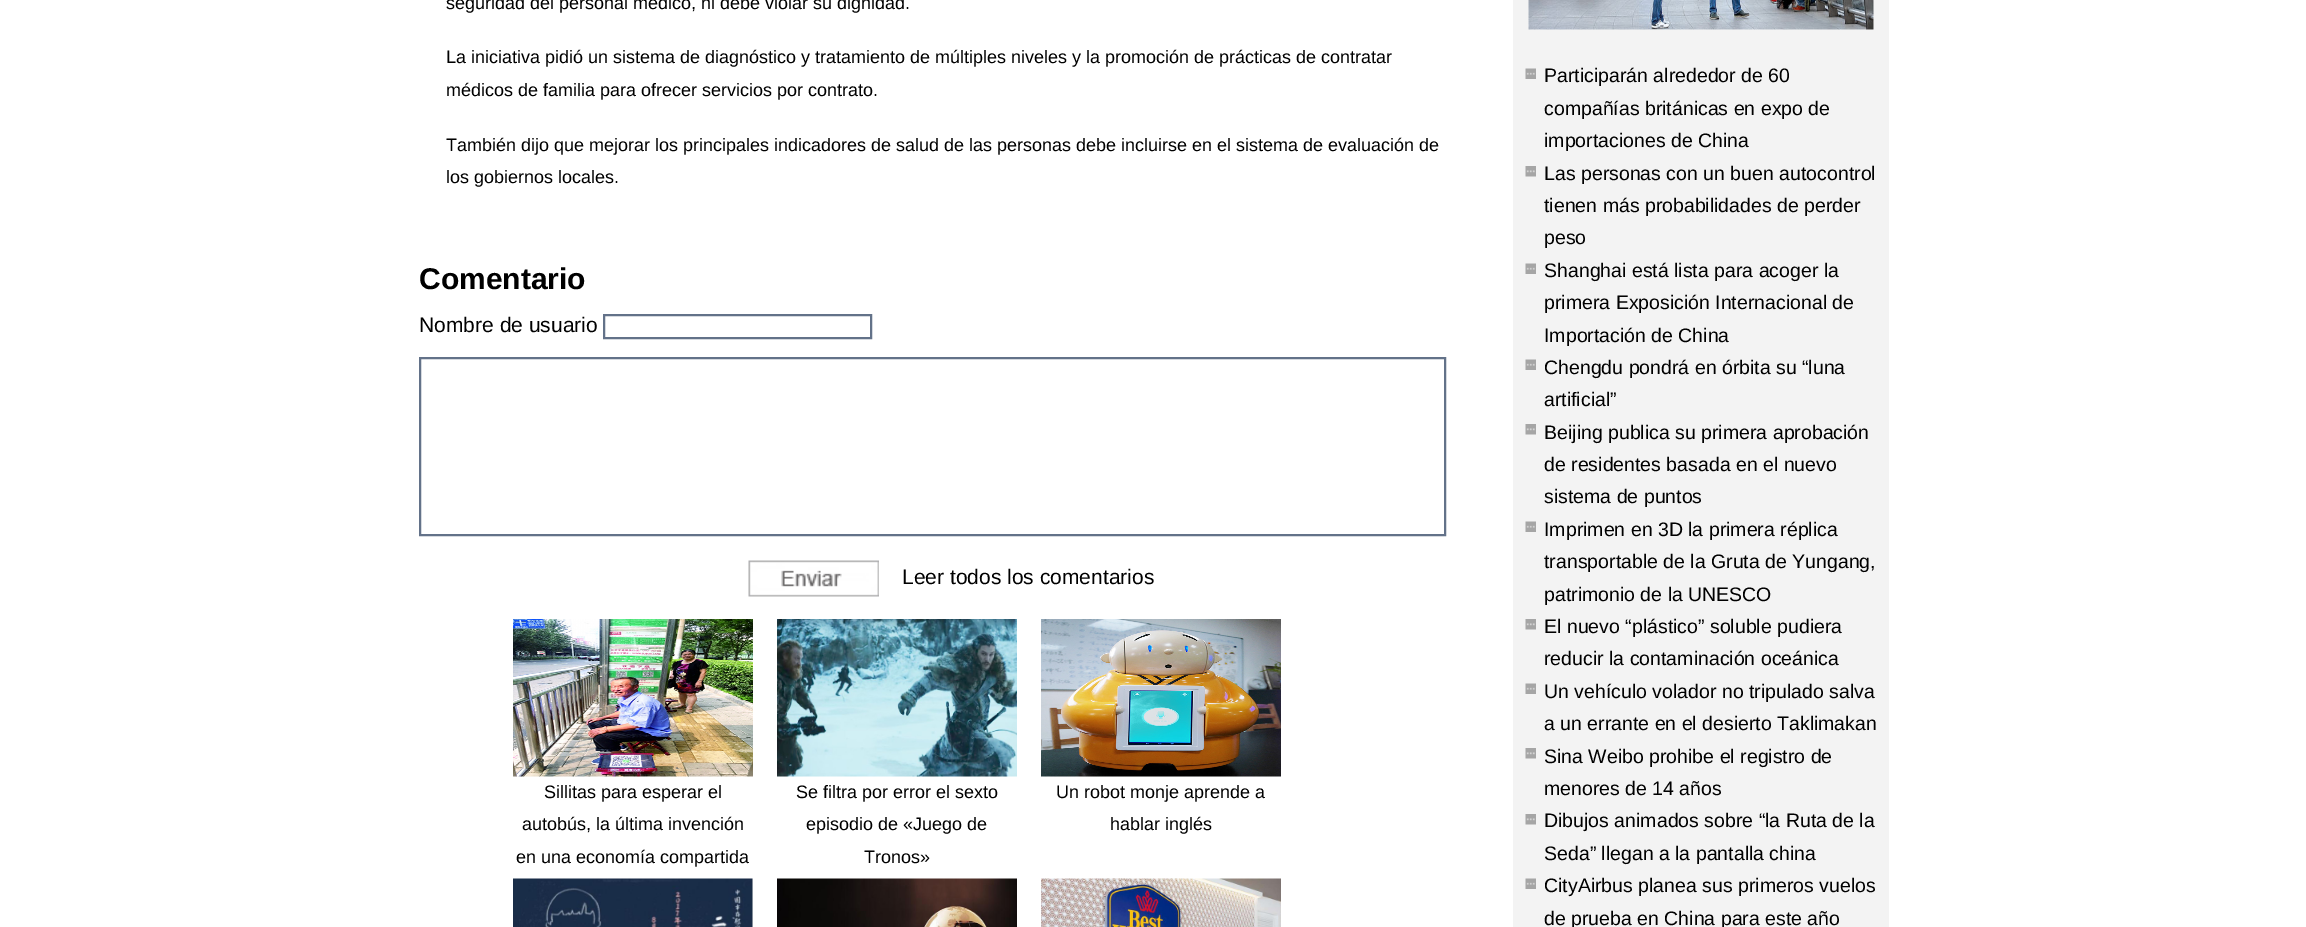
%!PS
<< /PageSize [2306 927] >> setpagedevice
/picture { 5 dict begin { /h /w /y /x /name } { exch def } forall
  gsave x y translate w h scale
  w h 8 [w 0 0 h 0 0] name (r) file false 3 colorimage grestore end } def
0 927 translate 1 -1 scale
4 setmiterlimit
1 setgray
0 0 2306 927 rectfill
0.953 setgray
1513 0 376 927 rectfill
/LiberationSans-Regular [18 0 0 -18 0 0] selectfont
0 setgray
446 9 moveto (seguridad del personal médico, ni debe violar su dignidad.) show
446 63 moveto (La iniciativa pidió un sistema de diagnóstico y tratamiento de múltiples niveles y la promoción de prácticas de contratar) show
446 96 moveto (médicos de familia para ofrecer servicios por contrato.) show
446 151 moveto (También dijo que mejorar los principales indicadores de salud de las personas debe incluirse en el sistema de evaluación de) show
446 183 moveto (los gobiernos locales.) show
/LiberationSans-Bold [30 0 0 -30 0 0] selectfont
419 289 moveto (Comentario) show
/LiberationSans-Regular [21 0 0 -21 0 0] selectfont
419 332 moveto (Nombre de usuario) show
0.388 0.447 0.537 setrgbcolor
2 setlinewidth
604 315 267 23 rectstroke
420 358 1025 177 rectstroke
(img1.rgb) 748 560 131 37 picture
0 setgray
902 584 moveto (Leer todos los comentarios) show
(img2.rgb) 513 619 240 158 picture
/LiberationSans-Regular [18 0 0 -18 0 0] selectfont
544 798 moveto (Sillitas para esperar el) show
522 830 moveto (autobús, la última invención) show
516 863 moveto (en una economía compartida) show
(img3.rgb) 777 619 240 158 picture
796 798 moveto (Se filtra por error el sexto) show
806 830 moveto (episodio de «Juego de) show
864 863 moveto (Tronos») show
(img4.rgb) 1041 619 240 158 picture
1056 798 moveto (Un robot monje aprende a) show
1110 830 moveto (hablar inglés) show
(img5.rgb) 513 878 240 49 picture
(img6.rgb) 777 878 240 49 picture
(img7.rgb) 1041 878 240 49 picture
(img8.rgb) 1528 0 346 30 picture
(img9.rgb) 1525 68 11 11 picture
/LiberationSans-Regular [19.5 0 0 -19.5 0 0] selectfont
1544 82 moveto (Participarán alrededor de 60) show
1544 115 moveto (compañías británicas en expo de) show
1544 147 moveto (importaciones de China) show
(img10.rgb) 1525 166 11 11 picture
1544 180 moveto (Las personas con un buen autocontrol) show
1544 212 moveto (tienen más probabilidades de perder) show
1544 244 moveto (peso) show
(img9.rgb) 1525 263 11 11 picture
1544 277 moveto (Shanghai está lista para acoger la) show
1544 309 moveto (primera Exposición Internacional de) show
1544 342 moveto (Importación de China) show
(img9.rgb) 1525 359 11 11 picture
1544 374 moveto (Chengdu pondrá en órbita su “luna) show
1544 406 moveto (artificial”) show
(img10.rgb) 1525 424 11 11 picture
1544 439 moveto (Beijing publica su primera aprobación) show
1544 471 moveto (de residentes basada en el nuevo) show
1544 503 moveto (sistema de puntos) show
(img9.rgb) 1525 521 11 11 picture
1544 536 moveto (Imprimen en 3D la primera réplica) show
1544 568 moveto (transportable de la Gruta de Yungang,) show
1544 601 moveto (patrimonio de la UNESCO) show
(img10.rgb) 1525 619 11 11 picture
1544 633 moveto (El nuevo “plástico” soluble pudiera) show
1544 665 moveto (reducir la contaminación oceánica) show
(img9.rgb) 1525 683 11 11 picture
1544 698 moveto (Un vehículo volador no tripulado salva) show
1544 730 moveto (a un errante en el desierto Taklimakan) show
(img10.rgb) 1525 748 11 11 picture
1544 763 moveto (Sina Weibo prohibe el registro de) show
1544 795 moveto (menores de 14 años) show
(img10.rgb) 1525 814 11 11 picture
1544 827 moveto (Dibujos animados sobre “la Ruta de la) show
1544 860 moveto (Seda” llegan a la pantalla china) show
(img9.rgb) 1525 878 11 11 picture
1544 892 moveto (CityAirbus planea sus primeros vuelos) show
1544 925 moveto (de prueba en China para este año) show
showpage
